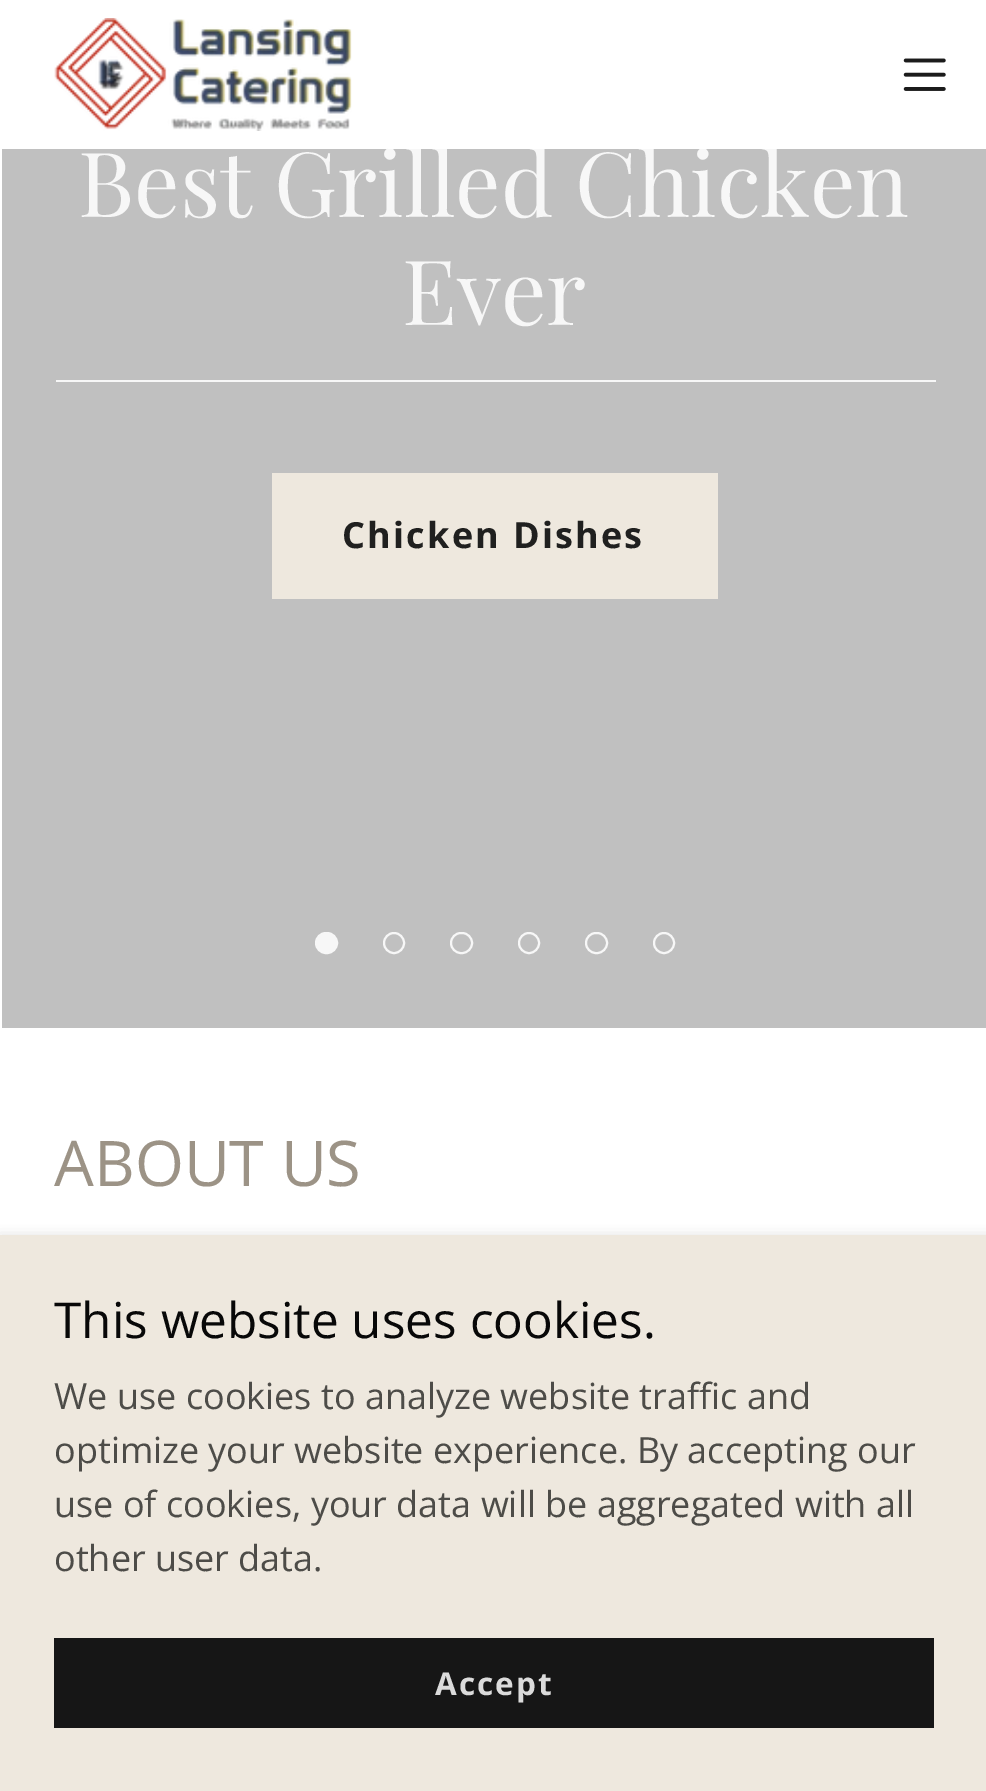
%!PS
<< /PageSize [986 1791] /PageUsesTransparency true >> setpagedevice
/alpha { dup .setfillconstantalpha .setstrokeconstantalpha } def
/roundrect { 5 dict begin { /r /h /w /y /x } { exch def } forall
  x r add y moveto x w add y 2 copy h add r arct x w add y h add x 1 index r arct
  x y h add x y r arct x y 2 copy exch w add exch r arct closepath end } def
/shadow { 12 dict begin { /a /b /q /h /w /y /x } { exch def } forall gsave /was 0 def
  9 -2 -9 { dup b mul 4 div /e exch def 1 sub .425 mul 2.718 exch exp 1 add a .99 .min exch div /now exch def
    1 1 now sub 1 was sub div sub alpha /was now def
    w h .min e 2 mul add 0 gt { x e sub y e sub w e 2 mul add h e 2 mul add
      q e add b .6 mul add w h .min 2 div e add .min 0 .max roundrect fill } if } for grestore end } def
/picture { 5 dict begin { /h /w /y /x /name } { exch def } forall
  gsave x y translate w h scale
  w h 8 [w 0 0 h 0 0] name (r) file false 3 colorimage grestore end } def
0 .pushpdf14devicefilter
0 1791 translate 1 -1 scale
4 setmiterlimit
1 setgray
0 0 986 1791 rectfill
0.753 setgray
2 149 984 879 rectfill
/PlayfairDisplay-Regular [90 0 0 -90 0 0] selectfont
0.969 setgray
78 217 moveto (Best Grilled Chicken) show
1 setgray
388 146 390 3 rectfill
(img1.rgb) 54 18 298 113 picture
(img2.rgb) 903 58 43 33 picture
0.969 setgray
56 380 880 2 rectfill
402 325 moveto (Ever) show
0.933 0.91 0.871 setrgbcolor
272 473 446 126 rectfill
/OpenSans-Bold [36 0 0 -36 0 0] selectfont
0.125 0.125 0.122 setrgbcolor
342 548 moveto 2.25 0 (Chicken Dishes) ashow
0.969 setgray
316 933 21 20 10 roundrect gsave fill grestore
2 setlinewidth
stroke
newpath 394 943 10 0 360 arc closepath stroke
451 933 21 20 10 roundrect stroke
newpath 529 943 10 0 360 arc closepath stroke
586 933 21 20 10 roundrect stroke
newpath 664 943 10 0 360 arc closepath stroke
/OpenSans-Regular [63 0 0 -63 0 0] selectfont
0.612 0.576 0.525 setrgbcolor
54 1186 moveto (ABOUT US) show
0 setgray
0 1240 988 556 0 7 0.3 shadow
0.933 0.91 0.871 setrgbcolor
0 1235 986 556 rectfill
/OpenSans-Regular [49.5 0 0 -49.5 0 0] selectfont
0.031 setgray
54 1338 moveto (This website uses cookies.) show
/OpenSans-Regular [36 0 0 -36 0 0] selectfont
0.302 0.298 0.282 setrgbcolor
54 1409 moveto (We use cookies to analyze website traffic and) show
54 1463 moveto (optimize your website experience. By accepting our) show
54 1517 moveto (use of cookies, your data will be aggregated with all) show
54 1571 moveto (other user data.) show
0.086 setgray
54 1638 880 90 rectfill
/OpenSans-Bold [31.5 0 0 -31.5 0 0] selectfont
0.859 setgray
435 1695 moveto 2 0 (Accept) ashow
.poppdf14devicefilter showpage
